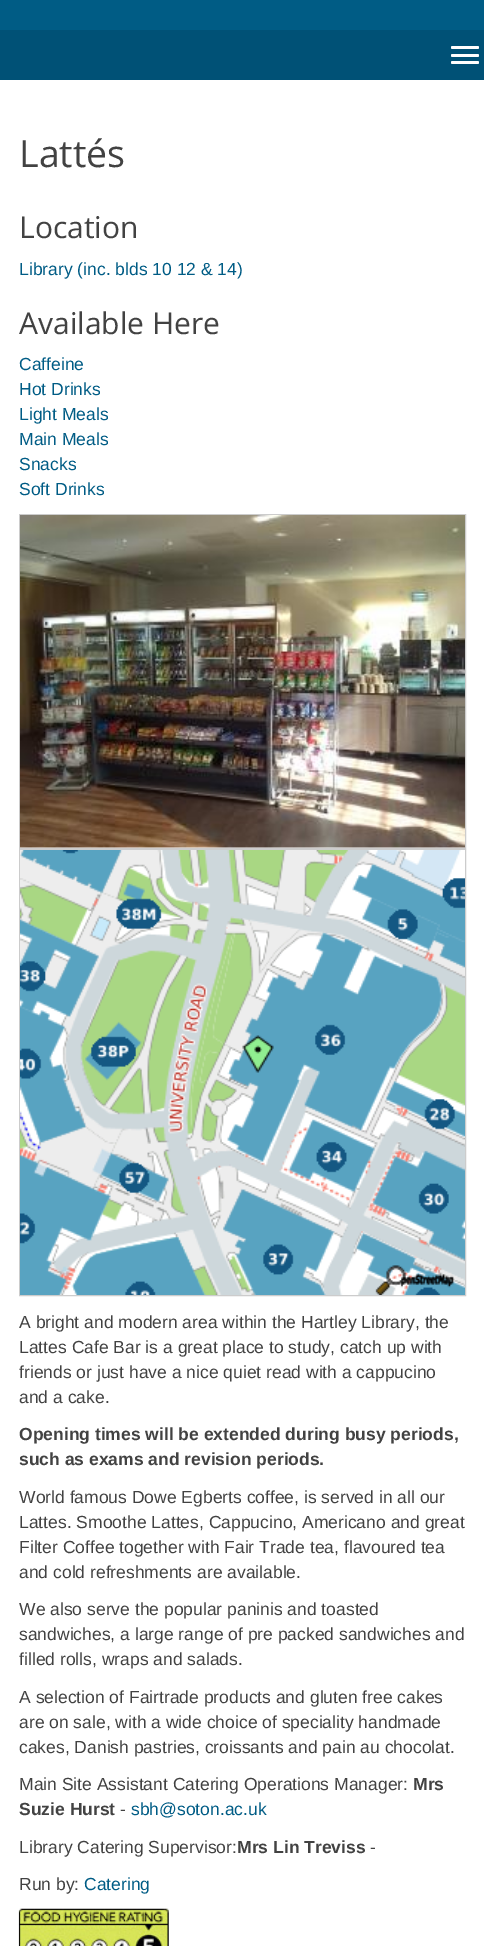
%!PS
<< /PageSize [484 1946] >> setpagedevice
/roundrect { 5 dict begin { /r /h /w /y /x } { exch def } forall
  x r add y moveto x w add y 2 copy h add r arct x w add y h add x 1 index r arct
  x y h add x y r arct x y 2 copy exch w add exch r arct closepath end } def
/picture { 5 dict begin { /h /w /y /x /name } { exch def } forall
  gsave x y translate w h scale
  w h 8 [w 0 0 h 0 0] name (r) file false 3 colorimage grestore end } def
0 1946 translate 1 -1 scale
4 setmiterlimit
0 0.361 0.522 setrgbcolor
0 0 484 1946 rectfill
0 0.318 0.463 setrgbcolor
0 30 484 50 rectfill
1 setgray
451 46 28 3 1.5 roundrect fill
451 54 28 3 1.5 roundrect fill
451 61 28 3 1.5 roundrect fill
0 80 484 1866 rectfill
/OpenSans-Regular [37.5 0 0 -37.5 0 0] selectfont
0.259 setgray
19 167 moveto (Lattés) show
/OpenSans-Regular [30 0 0 -30 0 0] selectfont
19 238 moveto (Location) show
/LiberationSans-Regular [17.5 0 0 -17.5 0 0] selectfont
0 0.361 0.522 setrgbcolor
19 275 moveto (Library \(inc. blds 10 12 & 14\)) show
/OpenSans-Regular [30 0 0 -30 0 0] selectfont
0.259 setgray
19 334 moveto (Available Here) show
/LiberationSans-Regular [17.5 0 0 -17.5 0 0] selectfont
0 0.361 0.522 setrgbcolor
19 370 moveto (Caffeine) show
19 395 moveto (Hot Drinks) show
19 420 moveto (Light Meals) show
19 445 moveto (Main Meals) show
19 470 moveto (Snacks) show
19 495 moveto (Soft Drinks) show
0.8 setgray
19.5 514.5 446 334 rectstroke
(img1.rgb) 20 515 445 333 picture
19.5 849.5 446 446 rectstroke
(img2.rgb) 20 850 445 445 picture
0.259 setgray
19 1328 moveto (A bright and modern area within the Hartley Library, the) show
19 1353 moveto (Lattes Cafe Bar is a great place to study, catch up with) show
19 1378 moveto (friends or just have a nice quiet read with a cappucino) show
19 1403 moveto (and a cake.) show
/LiberationSans-Bold [17.5 0 0 -17.5 0 0] selectfont
19 1440 moveto (Opening times will be extended during busy periods,) show
19 1465 moveto (such as exams and revision periods.) show
/LiberationSans-Regular [17.5 0 0 -17.5 0 0] selectfont
19 1503 moveto (World famous Dowe Egberts coffee, is served in all our) show
19 1528 moveto (Lattes. Smoothe Lattes, Cappucino, Americano and great) show
19 1553 moveto (Filter Coffee together with Fair Trade tea, flavoured tea) show
19 1578 moveto (and cold refreshments are available.) show
19 1615 moveto (We also serve the popular paninis and toasted) show
19 1640 moveto (sandwiches, a large range of pre packed sandwiches and) show
19 1665 moveto (filled rolls, wraps and salads.) show
19 1703 moveto (A selection of Fairtrade products and gluten free cakes) show
19 1728 moveto (are on sale, with a wide choice of speciality handmade) show
19 1753 moveto (cakes, Danish pastries, croissants and pain au chocolat.) show
19 1790 moveto (Main Site Assistant Catering Operations Manager:) show
/LiberationSans-Bold [17.5 0 0 -17.5 0 0] selectfont
413 1790 moveto (Mrs) show
19 1815 moveto (Suzie Hurst) show
/LiberationSans-Regular [17.5 0 0 -17.5 0 0] selectfont
120 1815 moveto (-) show
0 0.361 0.522 setrgbcolor
131 1815 moveto (sbh@soton.ac.uk) show
0.259 setgray
19 1853 moveto (Library Catering Supervisor:) show
/LiberationSans-Bold [17.5 0 0 -17.5 0 0] selectfont
237 1853 moveto (Mrs Lin Treviss) show
/LiberationSans-Regular [17.5 0 0 -17.5 0 0] selectfont
370 1853 moveto (-) show
19 1890 moveto (Run by:) show
0 0.361 0.522 setrgbcolor
84 1890 moveto (Catering) show
(img3.rgb) 18 1908 151 38 picture
showpage
